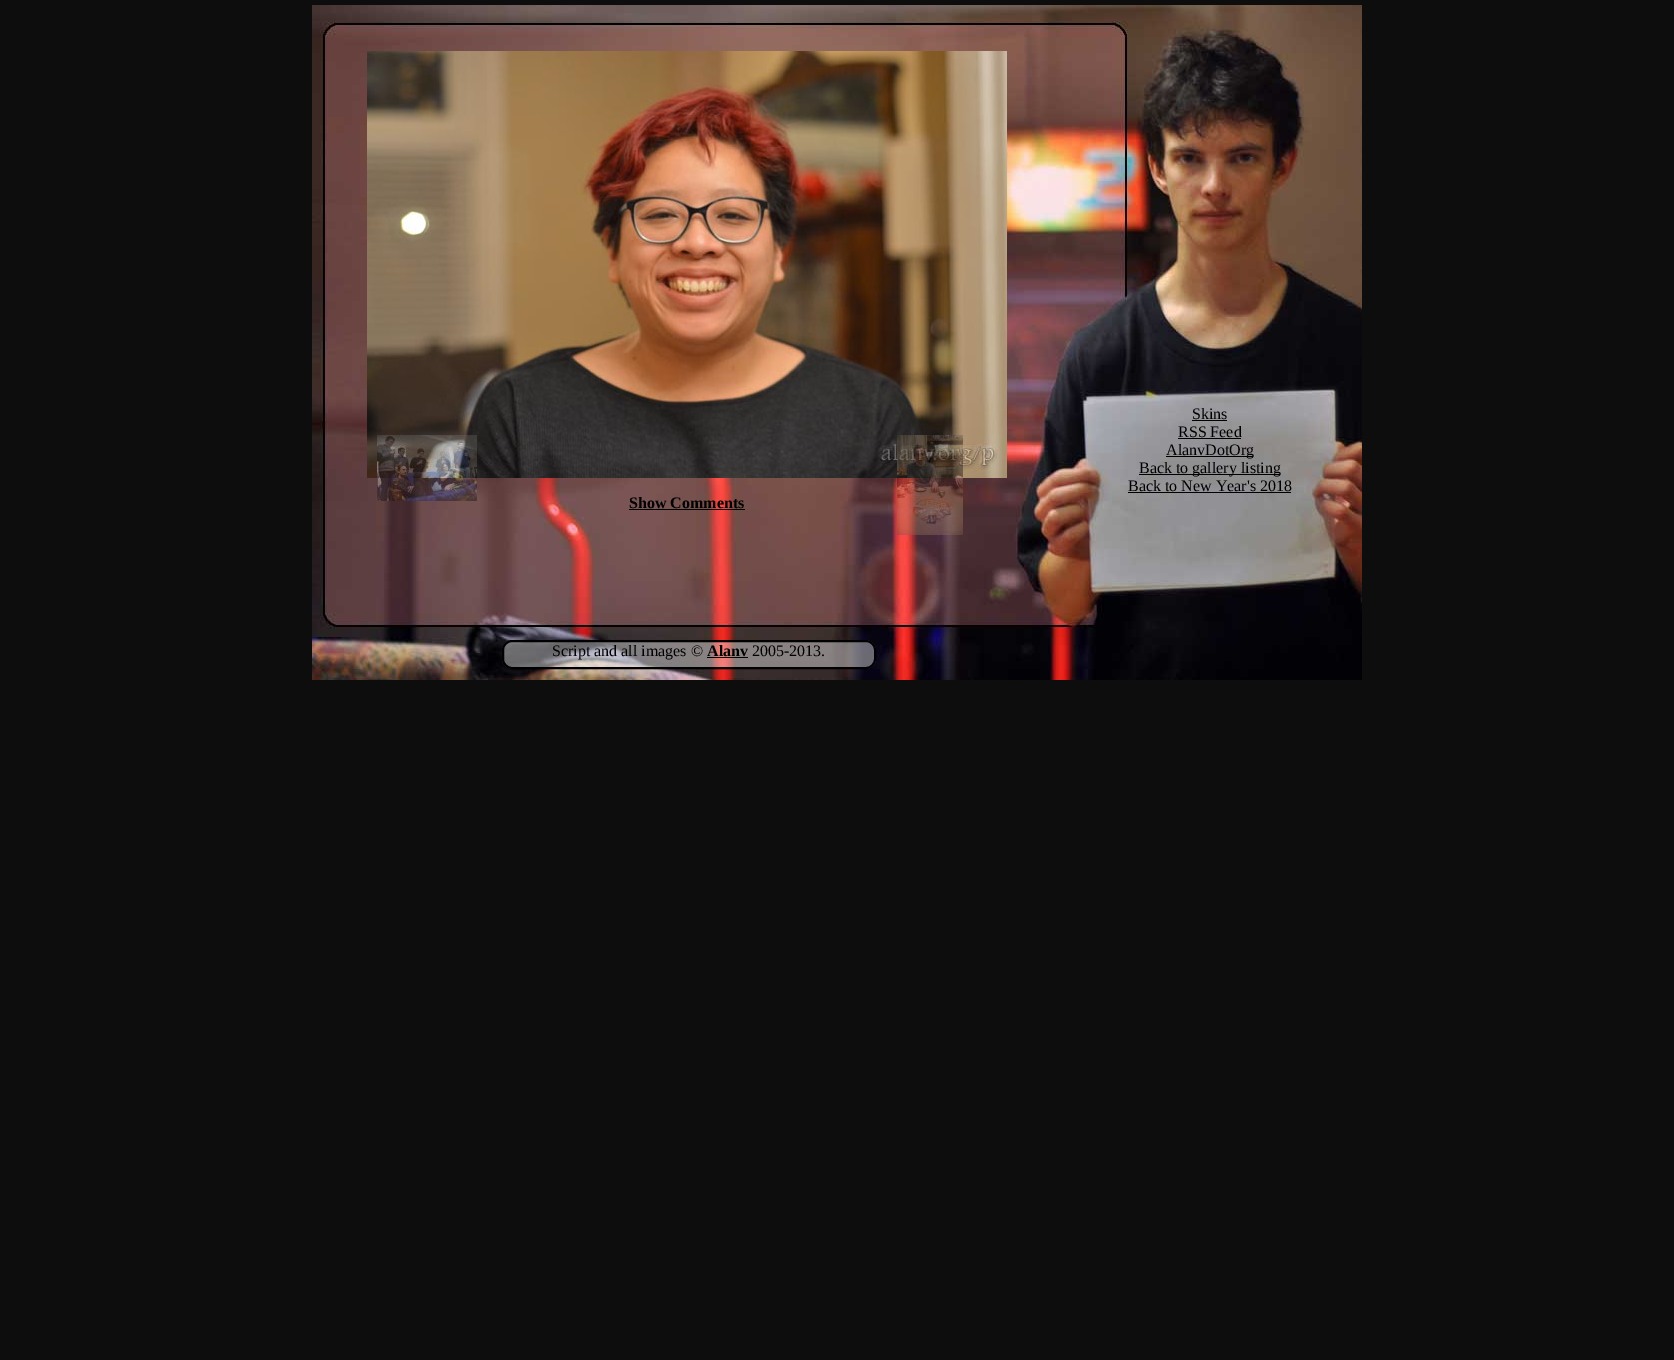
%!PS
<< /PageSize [1674 1360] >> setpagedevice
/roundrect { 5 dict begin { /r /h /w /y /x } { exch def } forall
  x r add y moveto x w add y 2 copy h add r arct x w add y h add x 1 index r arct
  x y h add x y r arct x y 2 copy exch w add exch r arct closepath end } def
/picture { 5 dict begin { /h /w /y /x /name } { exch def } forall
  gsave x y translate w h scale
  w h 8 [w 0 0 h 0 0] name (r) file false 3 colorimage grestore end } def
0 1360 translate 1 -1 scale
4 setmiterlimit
0.051 setgray
0 0 1674 1360 rectfill
(img1.rgb) 312 5 1050 675 picture
/LiberationSerif-Regular [16 0 0 -16 0 0] selectfont
0 setgray
1192 419 moveto (Skins) show
1192 420 35 1 rectfill
1178 437 moveto (RSS Feed) show
1178 438 63 1 rectfill
1166 456 87 1 rectfill
1166 455 moveto (AlanvDotOrg) show
1139 474 141 1 rectfill
1139 473 moveto (Back to gallery listing) show
1128 491 moveto (Back to New Year's 2018) show
1128 492 163 1 rectfill
(img2.rgb) 367 51 640 427 picture
(img3.rgb) 377 435 100 66 picture
/LiberationSerif-Bold [16 0 0 -16 0 0] selectfont
629 508 moveto (Show Comments) show
629 509 116 1 rectfill
(img4.rgb) 897 435 66 100 picture
(img5.rgb) 502 640 374 29 picture
2 setlinewidth
503 641 372 27 9 roundrect stroke
/LiberationSerif-Regular [16 0 0 -16 0 0] selectfont
552 656 moveto (Script and all images ©) show
/LiberationSerif-Bold [16 0 0 -16 0 0] selectfont
707 656 moveto (Alanv) show
707 657 41 1 rectfill
/LiberationSerif-Regular [16 0 0 -16 0 0] selectfont
752 656 moveto (2005-2013.) show
showpage
